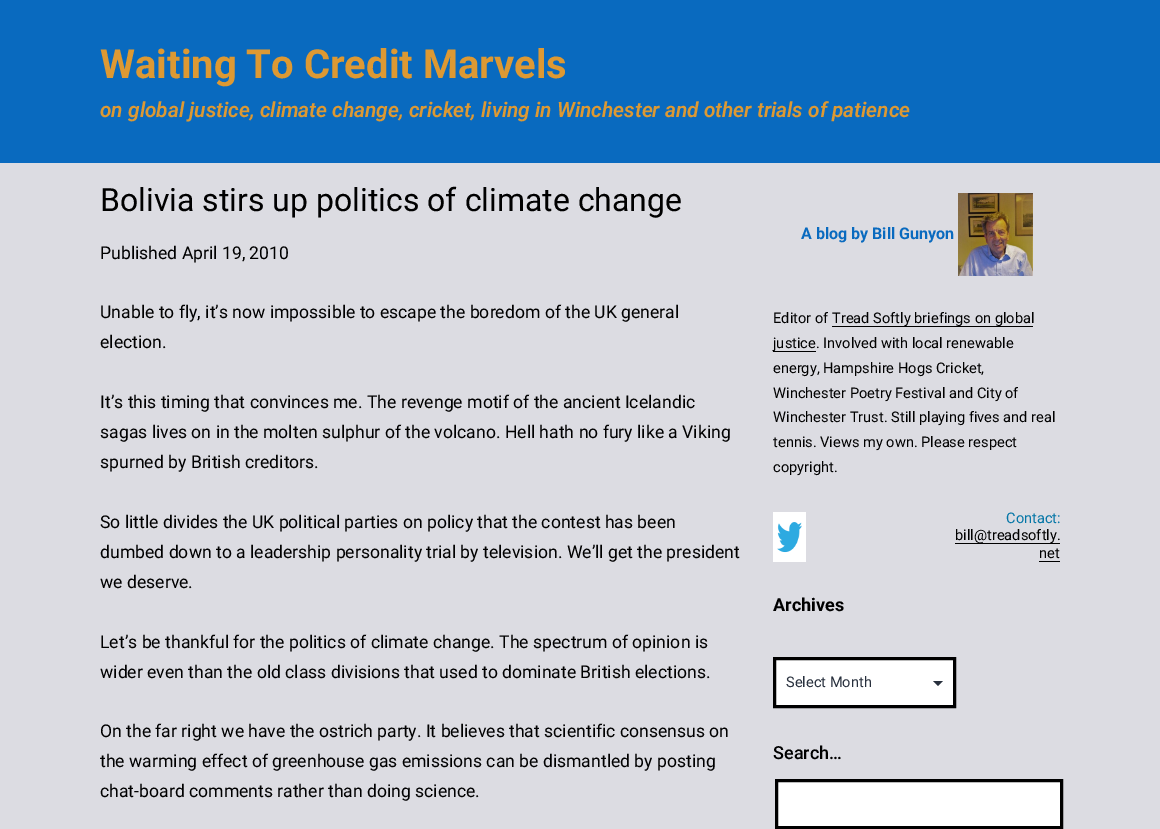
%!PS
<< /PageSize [1160 829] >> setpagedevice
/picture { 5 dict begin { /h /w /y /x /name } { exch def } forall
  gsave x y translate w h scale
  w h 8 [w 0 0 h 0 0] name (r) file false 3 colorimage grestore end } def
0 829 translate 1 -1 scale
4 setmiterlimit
0.863 0.863 0.886 setrgbcolor
0 0 1160 829 rectfill
0.035 0.416 0.749 setrgbcolor
0 0 1160 163 rectfill
/Roboto-Bold [40 0 0 -40 0 0] selectfont
0.867 0.6 0.2 setrgbcolor
100 78 moveto (Waiting To Credit Marvels) show
/Roboto-SemiBoldItalic [20.95 0 0 -20.95 0 0] selectfont
100 117 moveto (on global justice, climate change, cricket, living in Winchester and other trials of patience) show
/Roboto-Regular [32 0 0 -32 0 0] selectfont
0 setgray
100 211 moveto (Bolivia stirs up politics of climate change) show
/Roboto-Regular [17.6 0 0 -17.6 0 0] selectfont
100 259 moveto (Published April 19, 2010) show
100 318 moveto (Unable to fly, it’s now impossible to escape the boredom of the UK general) show
100 348 moveto (election.) show
100 408 moveto (It’s this timing that convinces me. The revenge motif of the ancient Icelandic) show
100 438 moveto (sagas lives on in the molten sulphur of the volcano. Hell hath no fury like a Viking) show
100 468 moveto (spurned by British creditors.) show
100 528 moveto (So little divides the UK political parties on policy that the contest has been) show
100 558 moveto (dumbed down to a leadership personality trial by television. We’ll get the president) show
100 588 moveto (we deserve.) show
100 648 moveto (Let’s be thankful for the politics of climate change. The spectrum of opinion is) show
100 678 moveto (wider even than the old class divisions that used to dominate British elections.) show
100 737 moveto (On the far right we have the ostrich party. It believes that scientific consensus on) show
100 767 moveto (the warming effect of greenhouse gas emissions can be dismantled by posting) show
100 797 moveto (chat-board comments rather than doing science.) show
/Roboto-Bold [16 0 0 -16 0 0] selectfont
0.035 0.416 0.749 setrgbcolor
801 239 moveto (A blog by Bill Gunyon) show
(img1.rgb) 958 193 75 83 picture
/Roboto-Regular [14.6 0 0 -14.6 0 0] selectfont
0 setgray
773 323 moveto (Editor of) show
832 326 201 1 rectfill
832 323 moveto (Tread Softly briefings on global) show
773 351 43 1 rectfill
773 348 moveto (justice. Involved with local renewable) show
773 373 moveto (energy, Hampshire Hogs Cricket,) show
773 398 moveto (Winchester Poetry Festival and City of) show
773 422 moveto (Winchester Trust. Still playing fives and real) show
773 447 moveto (tennis. Views my own. Please respect) show
773 472 moveto (copyright.) show
(img2.rgb) 773 512 33 50 picture
0.016 0.463 0.655 setrgbcolor
1006 523 moveto (Contact:) show
0 setgray
955 543 105 1 rectfill
955 540 moveto (bill@treadsoftly.) show
1039 558 moveto (net) show
1039 561 21 1 rectfill
/Roboto-Bold [18 0 0 -18 0 0] selectfont
773 611 moveto (Archives) show
1 setgray
776 660 177 45 rectfill
0.157 0.188 0.239 setrgbcolor
newpath 933 681 moveto 943 681 lineto 938 686 lineto closepath fill
0 setgray
3 setlinewidth
774.5 658.5 180 48 rectstroke
/Roboto-Regular [14.6 0 0 -14.6 0 0] selectfont
0.157 0.188 0.239 setrgbcolor
786 687 moveto (Select Month) show
/Roboto-Medium [18 0 0 -18 0 0] selectfont
0 setgray
773 759 moveto (Search…) show
1 setgray
newpath 776.5 780.5 moveto 1061.5 780.5 lineto 1061.5 827.5 lineto 776.5 827.5 lineto closepath gsave fill grestore
0 setgray
stroke
showpage
